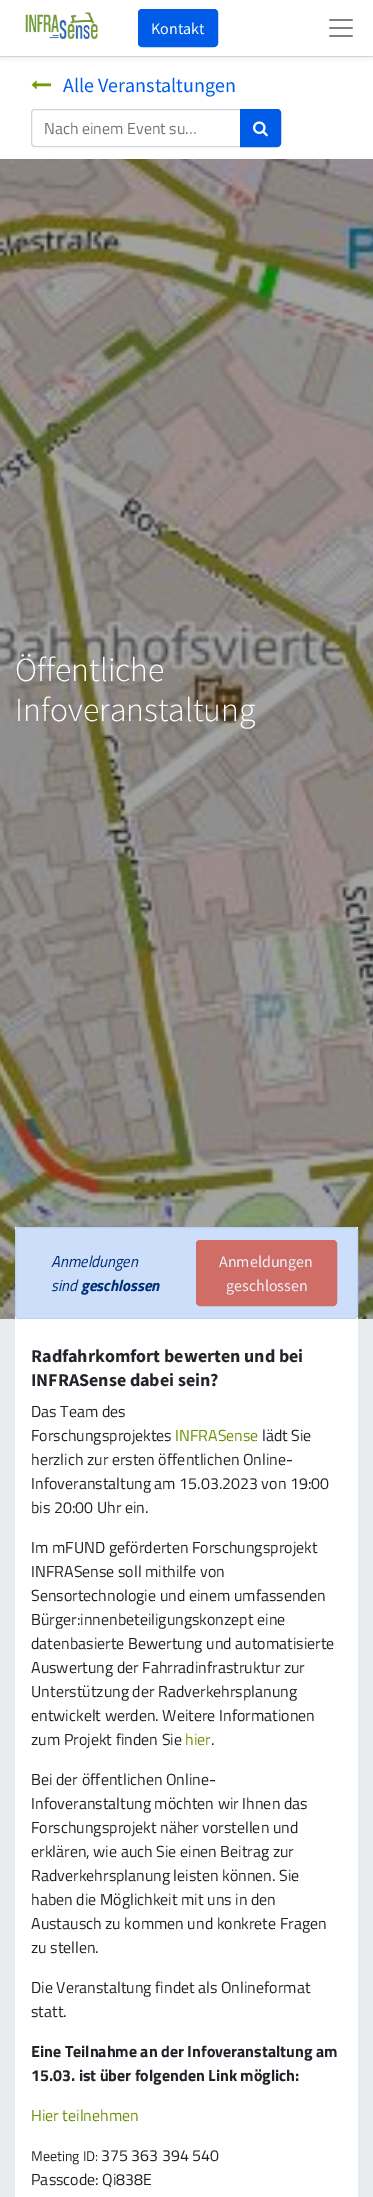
%!PS
<< /PageSize [373 2197] /PageUsesTransparency true >> setpagedevice
/alpha { dup .setfillconstantalpha .setstrokeconstantalpha } def
/roundrect { 5 dict begin { /r /h /w /y /x } { exch def } forall
  x r add y moveto x w add y 2 copy h add r arct x w add y h add x 1 index r arct
  x y h add x y r arct x y 2 copy exch w add exch r arct closepath end } def
/shadow { 12 dict begin { /a /b /q /h /w /y /x } { exch def } forall gsave /was 0 def
  9 -2 -9 { dup b mul 4 div /e exch def 1 sub .425 mul 2.718 exch exp 1 add a .99 .min exch div /now exch def
    1 1 now sub 1 was sub div sub alpha /was now def
    w h .min e 2 mul add 0 gt { x e sub y e sub w e 2 mul add h e 2 mul add
      q e add b .6 mul add w h .min 2 div e add .min 0 .max roundrect fill } if } for grestore end } def
/picture { 5 dict begin { /h /w /y /x /name } { exch def } forall
  gsave x y translate w h scale
  w h 8 [w 0 0 h 0 0] name (r) file false 3 colorimage grestore end } def
0 .pushpdf14devicefilter
0 2197 translate 1 -1 scale
4 setmiterlimit
1 setgray
0 0 373 2197 rectfill
0.871 0.886 0.902 setrgbcolor
0 56 373 1 rectfill
0 setgray
0 2 373 56 0 2 0.07 shadow
1 setgray
0 0 373 56 rectfill
(img1.rgb) 25 12 73 28 picture
0 0.361 0.902 setrgbcolor
138.5 9.5 79 37 3.5 roundrect gsave fill grestore
stroke
/SourceSansPro-Regular [16 0 0 -16 0 0] selectfont
1 setgray
151 34 moveto (Kontakt) show
(img2.rgb) 329 19 24 18 picture
(img3.rgb) 31 80 20 10 picture
/SourceSansPro-Regular [20 0 0 -20 0 0] selectfont
0 0.361 0.902 setrgbcolor
63 92 moveto (Alle Veranstaltungen) show
0.808 0.831 0.855 setrgbcolor
newpath 35 109.5 moveto 240.5 109.5 lineto 240.5 146.5 lineto 35 146.5 lineto 33 146.5 31.5 145 31.5 143 curveto 31.5 113 lineto 31.5 111 33 109.5 35 109.5 curveto closepath stroke
/TitilliumWeb-Regular [16 0 0 -16 0 0] selectfont
0.424 0.459 0.49 setrgbcolor
44 134 moveto (Nach einem Event su…) show
0 0.361 0.902 setrgbcolor
newpath 240.5 109.5 moveto 277 109.5 lineto 279 109.5 280.5 111 280.5 113 curveto 280.5 143 lineto 280.5 145 279 146.5 277 146.5 curveto 240.5 146.5 lineto closepath gsave fill grestore
stroke
(img4.rgb) 253 121 15 16 picture
(img5.rgb) 0 159 373 1160 picture
/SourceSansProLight-Light [33.75 0 0 -33.75 0 0] selectfont
1 setgray
15 681 moveto (Öffentliche) show
15 721 moveto (Infoveranstaltung) show
15 1227 343 92 rectfill
0.8 0.871 0.98 setrgbcolor
15.5 1227.5 342 91 3.5 roundrect gsave fill grestore
0.722 0.82 0.973 setrgbcolor
stroke
/TitilliumWeb-Italic [16 0 0 -16 0 0] selectfont
0 0.188 0.471 setrgbcolor
51 1267 moveto (Anmeldungen) show
51 1291 moveto (sind) show
/TitilliumWeb-BoldItalic [16 0 0 -16 0 0] selectfont
81 1291 moveto (geschlossen) show
0.812 0.427 0.4 setrgbcolor
196.5 1240.5 140 65 3.5 roundrect gsave fill grestore
stroke
/SourceSansPro-Regular [16 0 0 -16 0 0] selectfont
0.929 0.953 0.992 setrgbcolor
219 1267 moveto (Anmeldungen) show
226 1291 moveto (geschlossen) show
0.914 0.925 0.937 setrgbcolor
0 1319 373 878 rectfill
1 setgray
15 1319 343 878 rectfill
/SourceSansPro-Bold [18 0 0 -18 0 0] selectfont
0.129 0.145 0.161 setrgbcolor
31 1362 moveto (Radfahrkomfort bewerten und bei) show
31 1386 moveto (INFRASense dabei sein?) show
/TitilliumWeb-Regular [16 0 0 -16 0 0] selectfont
31 1417 moveto (Das Team des) show
31 1441 moveto (Forschungsprojektes) show
0.435 0.561 0.027 setrgbcolor
175 1441 moveto (INFRASense) show
0.129 0.145 0.161 setrgbcolor
262 1441 moveto (lädt Sie) show
31 1465 moveto (herzlich zur ersten öffentlichen Online-) show
31 1489 moveto (Infoveranstaltung am 15.03.2023 von 19:00) show
31 1513 moveto (bis 20:00 Uhr ein.) show
31 1553 moveto (Im mFUND geförderten Forschungsprojekt) show
31 1577 moveto (INFRASense soll mithilfe von) show
31 1601 moveto (Sensortechnologie und einem umfassenden) show
31 1625 moveto (Bürger:innenbeteiligungskonzept eine) show
31 1649 moveto (datenbasierte Bewertung und automatisierte) show
31 1673 moveto (Auswertung der Fahrradinfrastruktur zur) show
31 1697 moveto (Unterstützung der Radverkehrsplanung) show
31 1721 moveto (entwickelt werden. Weitere Informationen) show
31 1745 moveto (zum Projekt finden Sie) show
0.435 0.561 0.027 setrgbcolor
185 1745 moveto (hier) show
0.129 0.145 0.161 setrgbcolor
211 1745 moveto (.) show
31 1785 moveto (Bei der öffentlichen Online-) show
31 1809 moveto (Infoveranstaltung möchten wir Ihnen das) show
31 1833 moveto (Forschungsprojekt näher vorstellen und) show
31 1857 moveto (erklären, wie auch Sie einen Beitrag zur) show
31 1881 moveto (Radverkehrsplanung leisten können. Sie) show
31 1905 moveto (haben die Möglichkeit mit uns in den) show
31 1929 moveto (Austausch zu kommen und konkrete Fragen) show
31 1953 moveto (zu stellen.) show
31 1993 moveto (Die Veranstaltung findet als Onlineformat) show
31 2017 moveto (statt.) show
/TitilliumWeb-Bold [16 0 0 -16 0 0] selectfont
31 2057 moveto (Eine Teilnahme an der Infoveranstaltung am) show
31 2081 moveto (15.03. ist über folgenden Link möglich:) show
/TitilliumWeb-Regular [16 0 0 -16 0 0] selectfont
0.435 0.561 0.027 setrgbcolor
31 2121 moveto (Hier teilnehmen) show
/TitilliumWeb-Regular [14 0 0 -14 0 0] selectfont
0.129 0.145 0.161 setrgbcolor
31 2161 moveto (Meeting ID:) show
/TitilliumWeb-Regular [16 0 0 -16 0 0] selectfont
101 2161 moveto (375 363 394 540) show
31 2185 moveto (Passcode:) show
102 2185 moveto (Qi838E) show
.poppdf14devicefilter showpage
